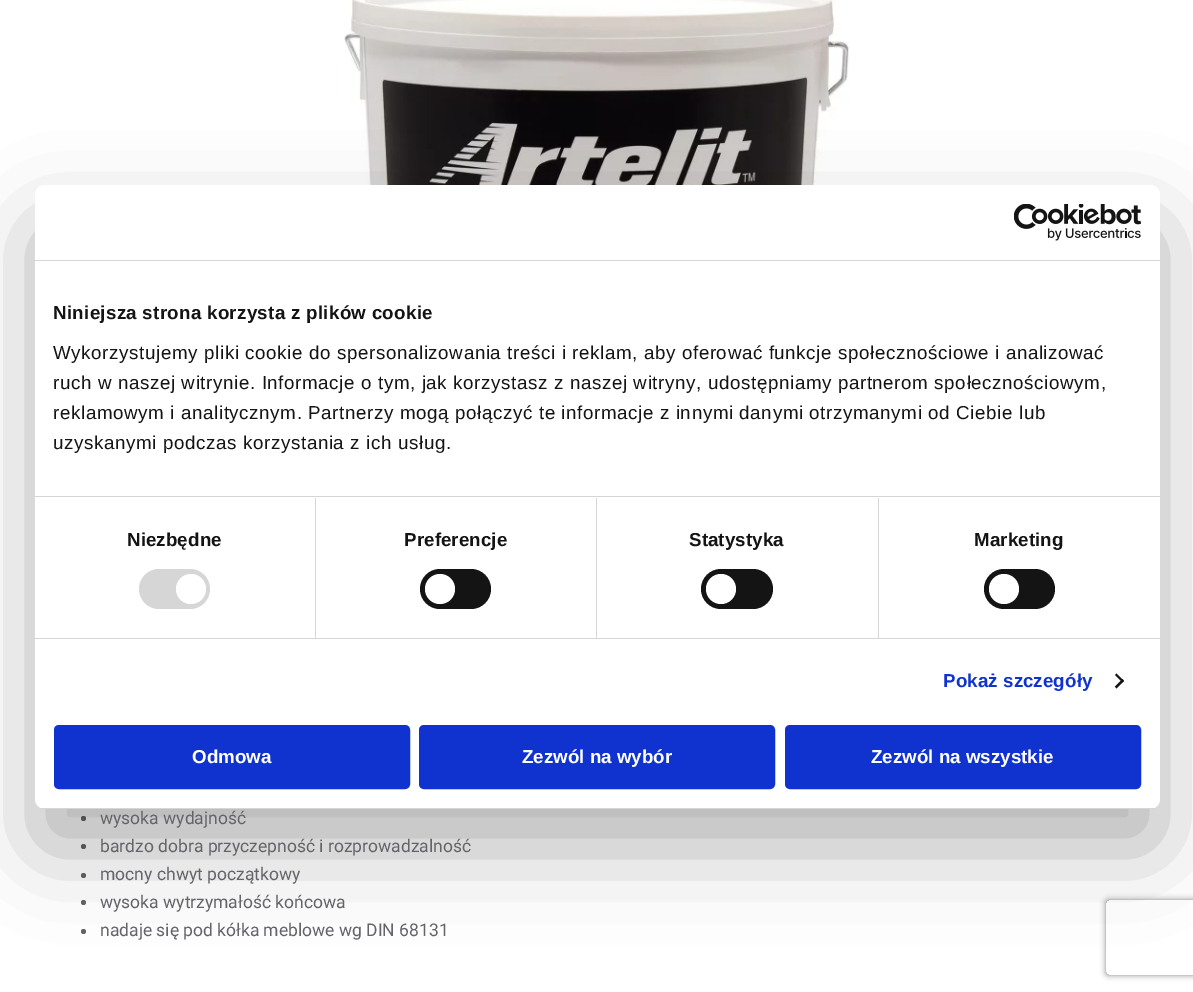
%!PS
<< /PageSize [1193 992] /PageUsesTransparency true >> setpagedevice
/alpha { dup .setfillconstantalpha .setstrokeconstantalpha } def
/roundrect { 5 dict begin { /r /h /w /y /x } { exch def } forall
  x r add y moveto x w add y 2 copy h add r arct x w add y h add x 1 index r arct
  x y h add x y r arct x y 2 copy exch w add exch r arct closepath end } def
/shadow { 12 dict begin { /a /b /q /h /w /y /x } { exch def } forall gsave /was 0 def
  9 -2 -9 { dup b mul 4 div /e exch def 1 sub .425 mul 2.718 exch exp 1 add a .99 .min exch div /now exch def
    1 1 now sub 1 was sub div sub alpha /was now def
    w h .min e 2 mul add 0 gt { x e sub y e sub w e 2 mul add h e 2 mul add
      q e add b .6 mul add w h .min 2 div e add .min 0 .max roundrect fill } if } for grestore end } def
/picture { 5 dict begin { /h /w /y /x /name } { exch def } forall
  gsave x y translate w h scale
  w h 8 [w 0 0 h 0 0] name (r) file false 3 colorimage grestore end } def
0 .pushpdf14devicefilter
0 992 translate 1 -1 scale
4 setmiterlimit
1 setgray
0 0 1193 992 rectfill
(img2.rgb) 344 0 505 185 picture
0.392 0.396 0.416 setrgbcolor
newpath 83.5 818.5 2.5 0 360 arc closepath fill
newpath 83.5 846.5 2.5 0 360 arc closepath fill
newpath 83.5 875.5 2.5 0 360 arc closepath fill
newpath 83.5 902.5 2.5 0 360 arc closepath fill
newpath 83.5 931.5 2.5 0 360 arc closepath fill
0 setgray
35 225 1125 624 10 42.5 0.3 shadow
1 setgray
35 185 1125 624 10 roundrect fill
0.839 setgray
35 260 1125 1 rectfill
(img1.rgb) 1014 204 127 37 picture
35 496 1125 1 rectfill
/LiberationSans-Bold [18.75 0 0 -18.75 0 0] selectfont
0.078 setgray
53 319 moveto 0.3 0 (Niniejsza strona korzysta z plików cookie) ashow
/LiberationSans-Regular [18.75 0 0 -18.75 0 0] selectfont
53 359 moveto 0.62 0 (Wykorzystujemy pliki cookie do spersonalizowania treści i reklam, aby oferować funkcje społecznościowe i analizować) ashow
53 389 moveto 0.62 0 (ruch w naszej witrynie. Informacje o tym, jak korzystasz z naszej witryny, udostępniamy partnerom społecznościowym,) ashow
53 419 moveto 0.62 0 (reklamowym i analitycznym. Partnerzy mogą połączyć te informacje z innymi danymi otrzymanymi od Ciebie lub) ashow
53 449 moveto 0.62 0 (uzyskanymi podczas korzystania z ich usług.) ashow
0.839 setgray
35 638 1125 1 rectfill
315 498 1 140 rectfill
/LiberationSans-Bold [18.75 0 0 -18.75 0 0] selectfont
0.078 setgray
127 546 moveto 0.1 0 (Niezbędne) ashow
0.839 setgray
139 569 71 40 20 roundrect fill
1 setgray
newpath 191 589 15 0 360 arc closepath fill
0.839 setgray
596 498 1 140 rectfill
0.078 setgray
404 546 moveto 0.1 0 (Preferencje) ashow
420 569 71 40 20 roundrect fill
1 setgray
newpath 440 589 15 0 360 arc closepath fill
0.839 setgray
878 498 1 140 rectfill
0.078 setgray
689 546 moveto 0.1 0 (Statystyka) ashow
701 569 72 40 20 roundrect fill
1 setgray
newpath 721 589 15 0 360 arc closepath fill
0.078 setgray
974 546 moveto 0.1 0 (Marketing) ashow
984 569 71 40 20 roundrect fill
1 setgray
newpath 1004 589 15 0 360 arc closepath fill
0.063 0.196 0.812 setrgbcolor
943 687 moveto 0.1 0 (Pokaż szczegóły) ashow
0.078 setgray
newpath 1116.5 673.5 moveto 1124 681 lineto 1122.5 682.5 lineto 1115 675 lineto closepath fill
newpath 1122.5 679 moveto 1124 681 lineto 1116.5 688.5 lineto 1115 686.5 lineto closepath fill
gsave
35 185 1125 624 10 roundrect clip newpath
0.839 setgray
35 808 1125 1 rectfill
grestore
0.063 0.196 0.812 setrgbcolor
55.5 726.5 353 61 3.5 roundrect gsave fill grestore
3 setlinewidth
stroke
1 setgray
192 763 moveto (Odmowa) show
0.063 0.196 0.812 setrgbcolor
420.5 726.5 353 61 3.5 roundrect gsave fill grestore
stroke
1 setgray
522 763 moveto (Zezwól na wybór) show
0.063 0.196 0.812 setrgbcolor
786.5 726.5 353 61 3.5 roundrect gsave fill grestore
stroke
1 setgray
871 763 moveto (Zezwól na wszystkie) show
/Roboto-Regular [17.5 0 0 -17.5 0 0] selectfont
0.392 0.396 0.416 setrgbcolor
100 824 moveto (wysoka wydajność) show
100 852 moveto (bardzo dobra przyczepność i rozprowadzalność) show
100 880 moveto (mocny chwyt początkowy) show
100 908 moveto (wysoka wytrzymałość końcowa) show
100 936 moveto (nadaje się pod kółka meblowe wg DIN 68131) show
gsave
newpath 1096 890 moveto 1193 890 lineto 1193 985 lineto 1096 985 lineto closepath 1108.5 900 moveto 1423.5 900 lineto 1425 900 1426 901 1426 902.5 curveto 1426 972.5 lineto 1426 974 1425 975 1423.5 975 curveto 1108.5 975 lineto 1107 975 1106 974 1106 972.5 curveto 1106 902.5 lineto 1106 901 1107 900 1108.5 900 curveto closepath eoclip newpath
0.502 setgray
1106 900 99 75 2.5 3 1 shadow
grestore
.poppdf14devicefilter showpage
